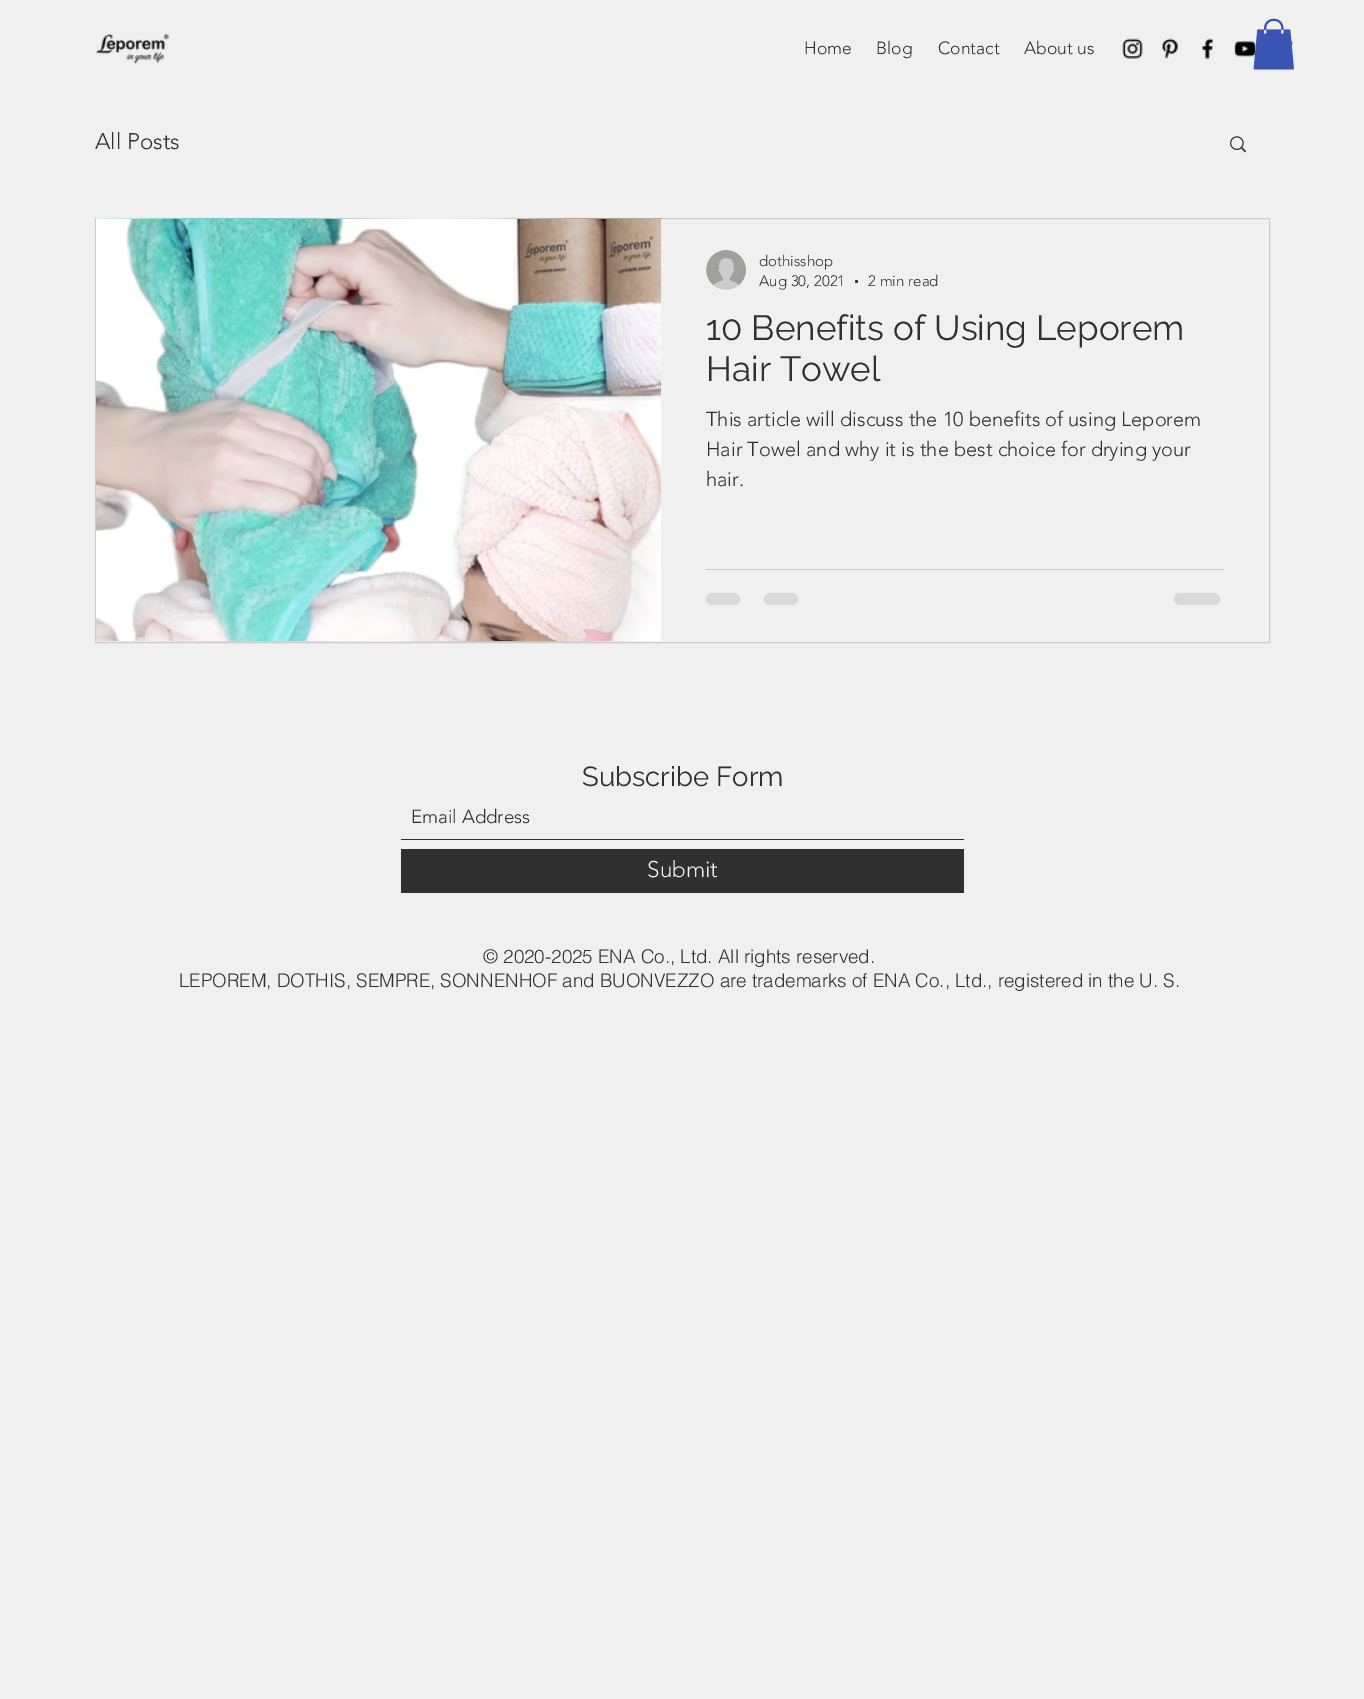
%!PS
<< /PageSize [1364 1699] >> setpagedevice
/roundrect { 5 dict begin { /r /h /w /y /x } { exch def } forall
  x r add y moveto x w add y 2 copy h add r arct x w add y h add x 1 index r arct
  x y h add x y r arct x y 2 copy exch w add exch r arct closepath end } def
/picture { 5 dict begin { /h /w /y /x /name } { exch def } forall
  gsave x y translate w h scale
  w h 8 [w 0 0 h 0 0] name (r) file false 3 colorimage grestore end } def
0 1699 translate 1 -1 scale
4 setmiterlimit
0.941 setgray
0 0 1364 1699 rectfill
(img1.rgb) 96 33 74 31 picture
/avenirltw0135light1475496-Light [17.5 0 0 -17.5 0 0] selectfont
0.188 setgray
804 54 moveto (Home) show
876 54 moveto (Blog) show
938 54 moveto (Contact) show
1024 54 moveto (About us) show
(img2.rgb) 1122 38 21 21 picture
(img3.rgb) 1162 38 17 21 picture
(img4.rgb) 1202 38 12 21 picture
(img5.rgb) 1234 41 22 16 picture
(img6.rgb) 1291 41 3 6 picture
(img7.rgb) 1253 18 41 52 picture
/avenirltw0135light1475496-Light [22.5 0 0 -22.5 0 0] selectfont
95 149 moveto (All Posts) show
(img8.rgb) 1230 136 17 17 picture
0.8 setgray
95.5 218.5 1174 424 rectstroke
(img9.rgb) 96 218 567 424 picture
(img10.rgb) 96 219 565 422 picture
0.941 setgray
661 219 2 422 rectfill
(img11.rgb) 706 250 40 40 picture
/avenirltw0135light1475496-Light [15 0 0 -15 0 0] selectfont
0.188 setgray
759 266 moveto (dothisshop) show
759 286 moveto (Aug 30, 2021) show
newpath 856.5 281.5 1.5 0 360 arc closepath fill
868 286 moveto (2 min read) show
/Raleway-Regular [35 0 0 -35 0 0] selectfont
706 340 moveto (10 Benefits of Using Leporem) show
706 381 moveto (Hair Towel) show
/avenirltw0135light1475496-Light [20 0 0 -20 0 0] selectfont
706 426 moveto (This article will discuss the 10 benefits of using Leporem) show
706 456 moveto (Hair Towel and why it is the best choice for drying your) show
706 486 moveto (hair.) show
0.792 setgray
706 569 518 1 rectfill
0.851 setgray
706 593 34 12 6 roundrect fill
764 593 34 12 6 roundrect fill
1174 593 46 12 6 roundrect fill
/Raleway-Regular [27.5 0 0 -27.5 0 0] selectfont
0.188 setgray
582 786 moveto (Subscribe Form) show
401 839 563 1 rectfill
/avenirltw0135light1475496-Light [18.75 0 0 -18.75 0 0] selectfont
411 823 moveto (Email Address) show
401 849 563 44 rectfill
/avenirltw0135light1475496-Light [22.5 0 0 -22.5 0 0] selectfont
0.941 setgray
647 877 moveto (Submit) show
/helvetica-Light [18.75 0 0 -18.75 0 0] selectfont
0.188 setgray
483 963 moveto (© 2020-2025 ENA Co., Ltd. All rights reserved.) show
179 987 moveto (LEPOREM, DOTHIS, SEMPRE, SONNENHOF and BUONVEZZO are trademarks of ENA Co., Ltd., registered in the U. S.) show
showpage
